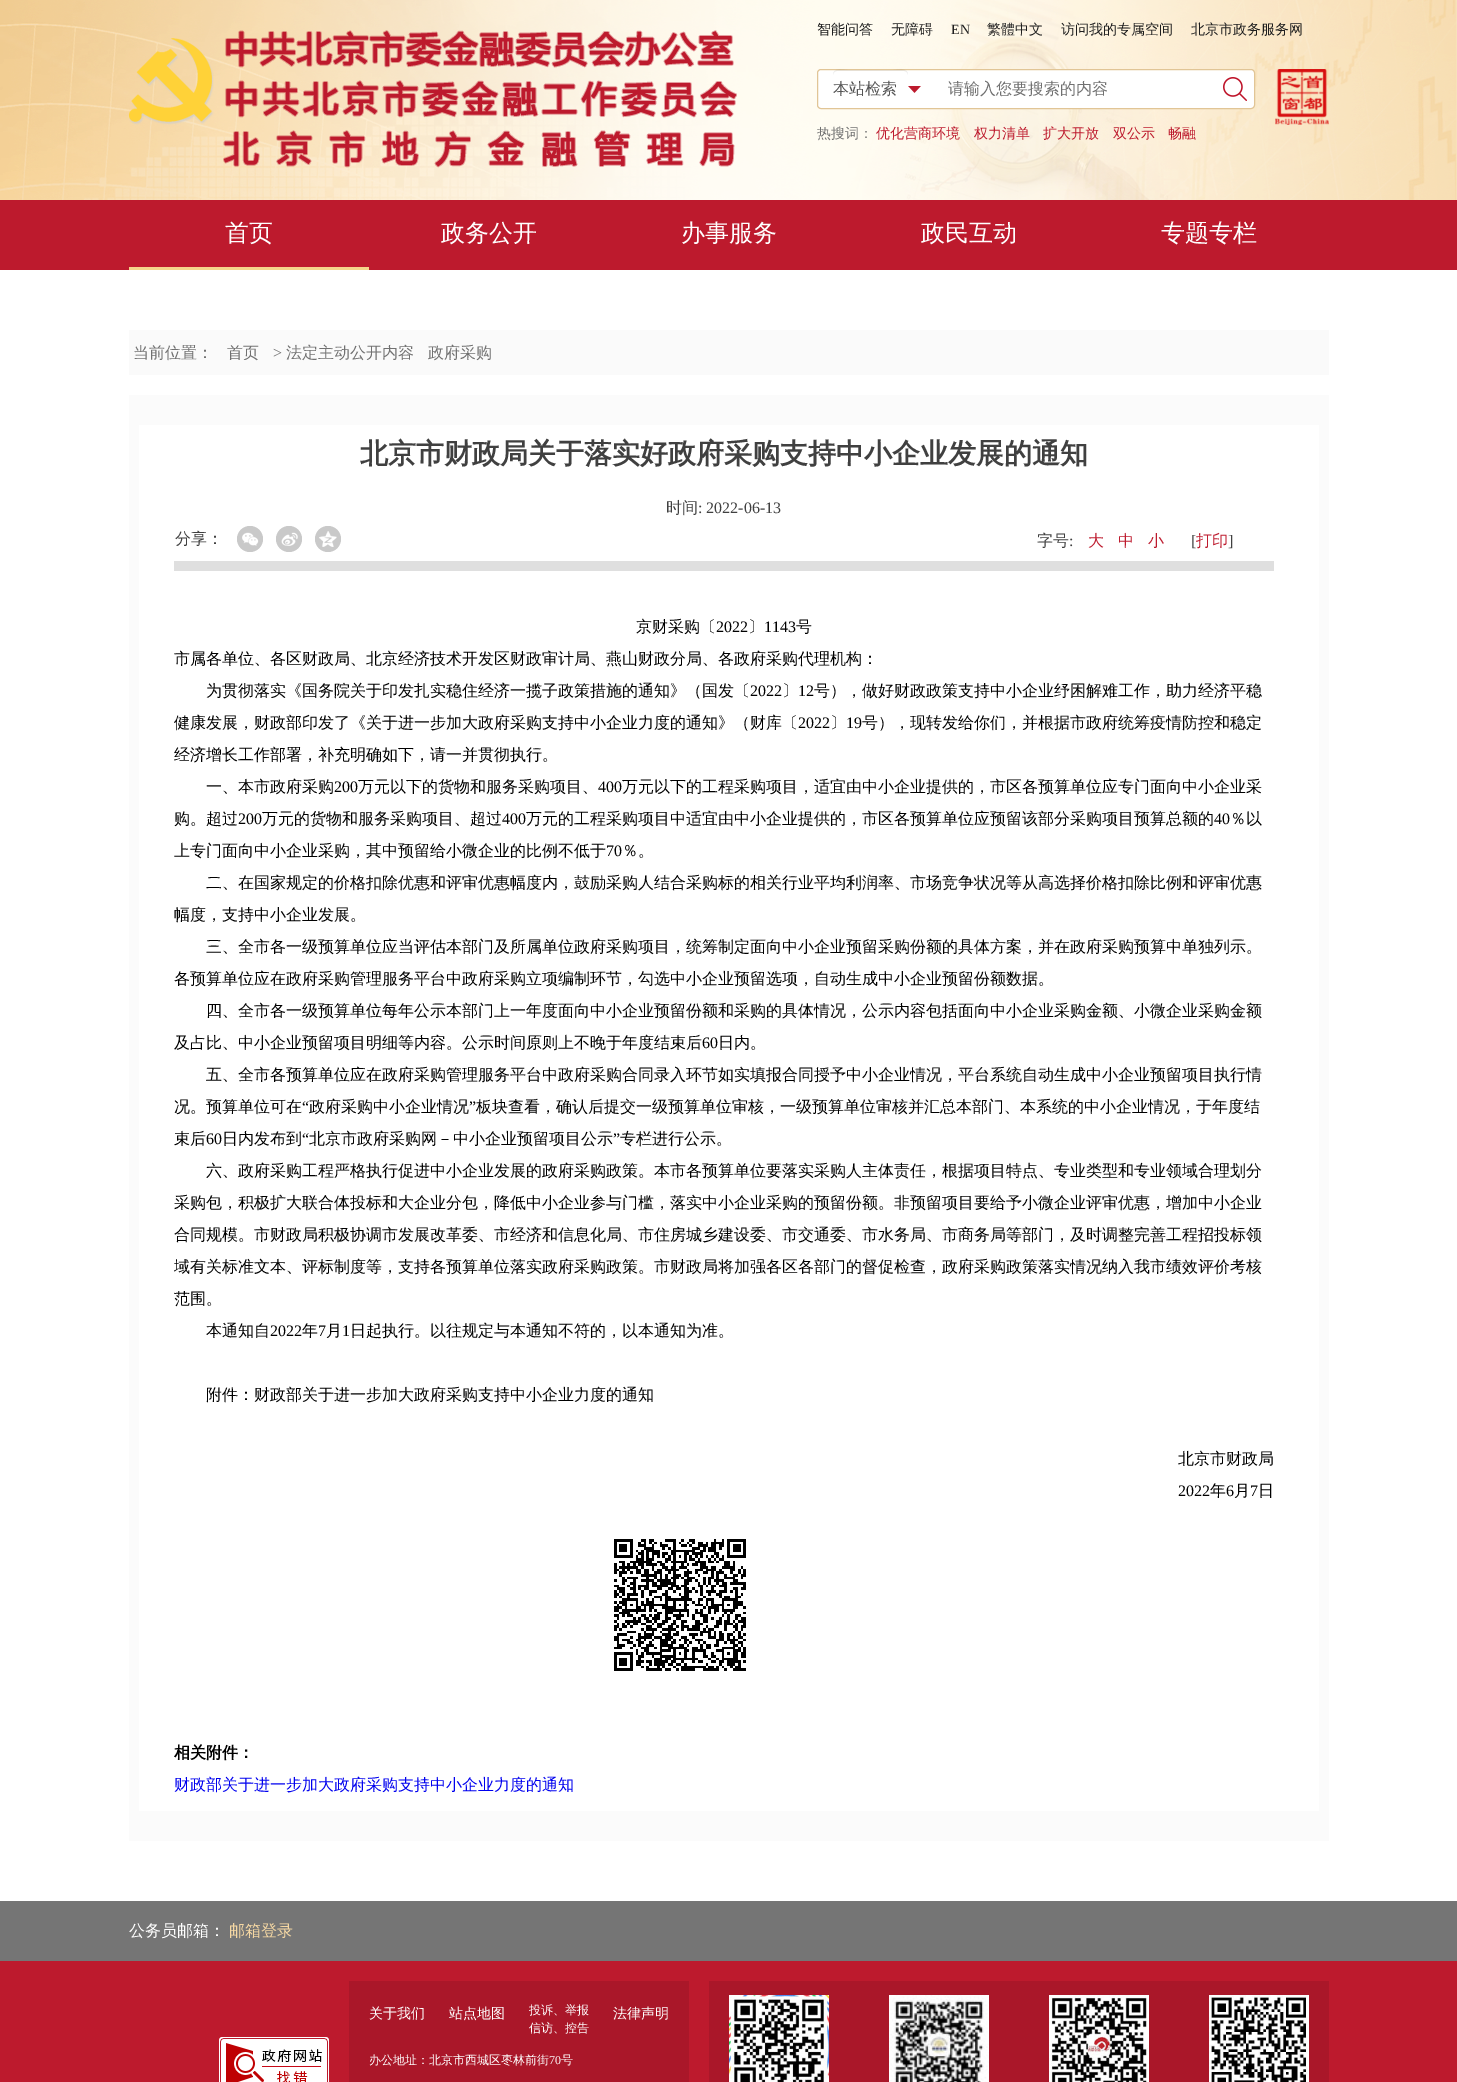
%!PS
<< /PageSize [1457 2082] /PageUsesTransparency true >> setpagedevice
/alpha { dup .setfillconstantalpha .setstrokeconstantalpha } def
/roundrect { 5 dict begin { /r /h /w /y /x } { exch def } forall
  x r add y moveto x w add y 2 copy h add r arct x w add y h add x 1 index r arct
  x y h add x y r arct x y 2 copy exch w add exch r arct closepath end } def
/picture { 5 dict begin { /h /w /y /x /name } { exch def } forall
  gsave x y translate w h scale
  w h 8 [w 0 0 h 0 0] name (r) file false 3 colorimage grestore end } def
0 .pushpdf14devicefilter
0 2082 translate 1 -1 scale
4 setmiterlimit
1 setgray
0 0 1457 2082 rectfill
(img1.rgb) 0 0 1457 200 picture
(img2.rgb) 129 30 608 138 picture
/WenQuanYiZenHei-Medium [14 0 0 -14 0 0] selectfont
0.118 setgray
817 34 moveto (智能问答) show
891 34 moveto (无障碍) show
/LiberationSerif-Regular [14 0 0 -14 0 0] selectfont
951 34 moveto (EN) show
/WenQuanYiZenHei-Medium [14 0 0 -14 0 0] selectfont
987 34 moveto (繁體中文) show
1061 34 moveto (访问我的专属空间) show
1191 34 moveto (北京市政务服务网) show
1 setgray
817.5 69.5 437 39 3.5 roundrect gsave fill grestore
0.882 0.773 0.588 setrgbcolor
stroke
(img3.rgb) 908 86 13 7 picture
0.07 alpha
0 setgray
newpath 837 71 moveto 904 71 lineto 906 71 908 73 908 75 curveto 908 67 898 70 893 70 curveto 848 70 lineto 843 70 833 67 833 75 curveto 833 73 835 71 837 71 curveto closepath fill
/WenQuanYiZenHei-Medium [16 0 0 -16 0 0] selectfont
1 alpha
0.333 setgray
833 94 moveto (本站检索) show
0.443 setgray
948 94 moveto (请输入您要搜索的内容) show
(img4.rgb) 1223 77 24 24 picture
(img5.rgb) 1275 69 54 56 picture
/WenQuanYiZenHei-Medium [14 0 0 -14 0 0] selectfont
817 138 moveto (热搜词：) show
0.741 0.102 0.176 setrgbcolor
876 138 moveto (优化营商环境) show
974 138 moveto (权力清单) show
1043 138 moveto (扩大开放) show
1113 138 moveto (双公示) show
1168 138 moveto (畅融) show
0 200 1457 70 rectfill
0.961 0.831 0.541 setrgbcolor
129 267 240 3 rectfill
/WenQuanYiZenHei-Medium [24 0 0 -24 0 0] selectfont
1 setgray
225 241 moveto (首页) show
441 241 moveto (政务公开) show
681 241 moveto (办事服务) show
921 241 moveto (政民互动) show
1161 241 moveto (专题专栏) show
0.98 setgray
129 330 1200 45 rectfill
/WenQuanYiZenHei-Medium [16 0 0 -16 0 0] selectfont
0.443 setgray
133 358 moveto (当前位置：) show
227 358 moveto (首页) show
/LiberationSerif-Regular [16 0 0 -16 0 0] selectfont
273 358 moveto (>) show
/WenQuanYiZenHei-Medium [16 0 0 -16 0 0] selectfont
286 358 moveto (法定主动公开内容) show
428 358 moveto (政府采购) show
0.984 setgray
129 395 1200 1446 rectfill
1 setgray
139 425 1180 1386 rectfill
/WenQuanYiZenHei-Bold [28 0 0 -28 0 0] selectfont
0.251 setgray
360 463 moveto (北京市财政局关于落实好政府采购支持中小企业发展的通知) show
/WenQuanYiZenHei-Medium [16 0 0 -16 0 0] selectfont
666 513 moveto (时间) show
/LiberationSerif-Regular [16 0 0 -16 0 0] selectfont
698 513 moveto (: 2022-06-13) show
/WenQuanYiZenHei-Medium [16 0 0 -16 0 0] selectfont
175 544 moveto (分享：) show
0.788 setgray
newpath 250 539 13 0 360 arc closepath fill
(img6.rgb) 242 532 17 14 picture
newpath 289 539 13 0 360 arc closepath fill
(img7.rgb) 281 532 17 14 picture
newpath 328 539 13 0 360 arc closepath fill
(img8.rgb) 319 531 18 16 picture
0.251 setgray
1037 546 moveto (字号) show
/LiberationSerif-Regular [16 0 0 -16 0 0] selectfont
1069 546 moveto (:) show
/WenQuanYiZenHei-Medium [16 0 0 -16 0 0] selectfont
0.741 0.102 0.176 setrgbcolor
1088 546 moveto (大) show
1118 546 moveto (中) show
1148 546 moveto (小) show
/LiberationSerif-Regular [16 0 0 -16 0 0] selectfont
0.251 setgray
1191 546 moveto ([) show
/WenQuanYiZenHei-Medium [16 0 0 -16 0 0] selectfont
0.741 0.102 0.176 setrgbcolor
1196 546 moveto (打印) show
/LiberationSerif-Regular [16 0 0 -16 0 0] selectfont
0.251 setgray
1228 546 moveto (]) show
0.875 setgray
174 561 1100 10 rectfill
/WenQuanYiZenHei-Medium [16 0 0 -16 0 0] selectfont
0 setgray
636 632 moveto (京财采购〔) show
/LiberationSerif-Regular [16 0 0 -16 0 0] selectfont
716 632 moveto (2022) show
/WenQuanYiZenHei-Medium [16 0 0 -16 0 0] selectfont
748 632 moveto (〕) show
/LiberationSerif-Regular [16 0 0 -16 0 0] selectfont
764 632 moveto (1143) show
/WenQuanYiZenHei-Medium [16 0 0 -16 0 0] selectfont
796 632 moveto (号) show
174 664 moveto (市属各单位、各区财政局、北京经济技术开发区财政审计局、燕山财政分局、各政府采购代理机构：) show
206 696 moveto (为贯彻落实《国务院关于印发扎实稳住经济一揽子政策措施的通知》（国发〔) show
/LiberationSerif-Regular [16 0 0 -16 0 0] selectfont
750 696 moveto (2022) show
/WenQuanYiZenHei-Medium [16 0 0 -16 0 0] selectfont
782 696 moveto (〕) show
/LiberationSerif-Regular [16 0 0 -16 0 0] selectfont
798 696 moveto (12) show
/WenQuanYiZenHei-Medium [16 0 0 -16 0 0] selectfont
814 696 moveto (号），做好财政政策支持中小企业纾困解难工作，助力经济平稳) show
174 728 moveto (健康发展，财政部印发了《关于进一步加大政府采购支持中小企业力度的通知》（财库〔) show
/LiberationSerif-Regular [16 0 0 -16 0 0] selectfont
798 728 moveto (2022) show
/WenQuanYiZenHei-Medium [16 0 0 -16 0 0] selectfont
830 728 moveto (〕) show
/LiberationSerif-Regular [16 0 0 -16 0 0] selectfont
846 728 moveto (19) show
/WenQuanYiZenHei-Medium [16 0 0 -16 0 0] selectfont
862 728 moveto (号），现转发给你们，并根据市政府统筹疫情防控和稳定) show
174 760 moveto (经济增长工作部署，补充明确如下，请一并贯彻执行。) show
206 792 moveto (一、本市政府采购) show
/LiberationSerif-Regular [16 0 0 -16 0 0] selectfont
334 792 moveto (200) show
/WenQuanYiZenHei-Medium [16 0 0 -16 0 0] selectfont
358 792 moveto (万元以下的货物和服务采购项目、) show
/LiberationSerif-Regular [16 0 0 -16 0 0] selectfont
598 792 moveto (400) show
/WenQuanYiZenHei-Medium [16 0 0 -16 0 0] selectfont
622 792 moveto (万元以下的工程采购项目，适宜由中小企业提供的，市区各预算单位应专门面向中小企业采) show
174 824 moveto (购。超过) show
/LiberationSerif-Regular [16 0 0 -16 0 0] selectfont
238 824 moveto (200) show
/WenQuanYiZenHei-Medium [16 0 0 -16 0 0] selectfont
262 824 moveto (万元的货物和服务采购项目、超过) show
/LiberationSerif-Regular [16 0 0 -16 0 0] selectfont
502 824 moveto (400) show
/WenQuanYiZenHei-Medium [16 0 0 -16 0 0] selectfont
526 824 moveto (万元的工程采购项目中适宜由中小企业提供的，市区各预算单位应预留该部分采购项目预算总额的) show
/LiberationSerif-Regular [16 0 0 -16 0 0] selectfont
1214 824 moveto (40) show
/WenQuanYiZenHei-Medium [16 0 0 -16 0 0] selectfont
1230 824 moveto (％以) show
174 856 moveto (上专门面向中小企业采购，其中预留给小微企业的比例不低于) show
/LiberationSerif-Regular [16 0 0 -16 0 0] selectfont
606 856 moveto (70) show
/WenQuanYiZenHei-Medium [16 0 0 -16 0 0] selectfont
622 856 moveto (％。) show
206 888 moveto (二、在国家规定的价格扣除优惠和评审优惠幅度内，鼓励采购人结合采购标的相关行业平均利润率、市场竞争状况等从高选择价格扣除比例和评审优惠) show
174 920 moveto (幅度，支持中小企业发展。) show
206 952 moveto (三、全市各一级预算单位应当评估本部门及所属单位政府采购项目，统筹制定面向中小企业预留采购份额的具体方案，并在政府采购预算中单独列示。) show
174 984 moveto (各预算单位应在政府采购管理服务平台中政府采购立项编制环节，勾选中小企业预留选项，自动生成中小企业预留份额数据。) show
206 1016 moveto (四、全市各一级预算单位每年公示本部门上一年度面向中小企业预留份额和采购的具体情况，公示内容包括面向中小企业采购金额、小微企业采购金额) show
174 1048 moveto (及占比、中小企业预留项目明细等内容。公示时间原则上不晚于年度结束后) show
/LiberationSerif-Regular [16 0 0 -16 0 0] selectfont
702 1048 moveto (60) show
/WenQuanYiZenHei-Medium [16 0 0 -16 0 0] selectfont
718 1048 moveto (日内。) show
206 1080 moveto (五、全市各预算单位应在政府采购管理服务平台中政府采购合同录入环节如实填报合同授予中小企业情况，平台系统自动生成中小企业预留项目执行情) show
174 1112 moveto (况。预算单位可在) show
/LiberationSerif-Regular [16 0 0 -16 0 0] selectfont
302 1112 moveto (“) show
/WenQuanYiZenHei-Medium [16 0 0 -16 0 0] selectfont
309 1112 moveto (政府采购中小企业情况) show
/LiberationSerif-Regular [16 0 0 -16 0 0] selectfont
469 1112 moveto (”) show
/WenQuanYiZenHei-Medium [16 0 0 -16 0 0] selectfont
476 1112 moveto (板块查看，确认后提交一级预算单位审核，一级预算单位审核并汇总本部门、本系统的中小企业情况，于年度结) show
174 1144 moveto (束后) show
/LiberationSerif-Regular [16 0 0 -16 0 0] selectfont
206 1144 moveto (60) show
/WenQuanYiZenHei-Medium [16 0 0 -16 0 0] selectfont
222 1144 moveto (日内发布到) show
/LiberationSerif-Regular [16 0 0 -16 0 0] selectfont
302 1144 moveto (“) show
/WenQuanYiZenHei-Medium [16 0 0 -16 0 0] selectfont
309 1144 moveto (北京市政府采购网－中小企业预留项目公示) show
/LiberationSerif-Regular [16 0 0 -16 0 0] selectfont
613 1144 moveto (”) show
/WenQuanYiZenHei-Medium [16 0 0 -16 0 0] selectfont
620 1144 moveto (专栏进行公示。) show
206 1176 moveto (六、政府采购工程严格执行促进中小企业发展的政府采购政策。本市各预算单位要落实采购人主体责任，根据项目特点、专业类型和专业领域合理划分) show
174 1208 moveto (采购包，积极扩大联合体投标和大企业分包，降低中小企业参与门槛，落实中小企业采购的预留份额。非预留项目要给予小微企业评审优惠，增加中小企业) show
174 1240 moveto (合同规模。市财政局积极协调市发展改革委、市经济和信息化局、市住房城乡建设委、市交通委、市水务局、市商务局等部门，及时调整完善工程招投标领) show
174 1272 moveto (域有关标准文本、评标制度等，支持各预算单位落实政府采购政策。市财政局将加强各区各部门的督促检查，政府采购政策落实情况纳入我市绩效评价考核) show
174 1304 moveto (范围。) show
206 1336 moveto (本通知自) show
/LiberationSerif-Regular [16 0 0 -16 0 0] selectfont
270 1336 moveto (2022) show
/WenQuanYiZenHei-Medium [16 0 0 -16 0 0] selectfont
302 1336 moveto (年) show
/LiberationSerif-Regular [16 0 0 -16 0 0] selectfont
318 1336 moveto (7) show
/WenQuanYiZenHei-Medium [16 0 0 -16 0 0] selectfont
326 1336 moveto (月) show
/LiberationSerif-Regular [16 0 0 -16 0 0] selectfont
342 1336 moveto (1) show
/WenQuanYiZenHei-Medium [16 0 0 -16 0 0] selectfont
350 1336 moveto (日起执行。以往规定与本通知不符的，以本通知为准。) show
206 1400 moveto (附件：财政部关于进一步加大政府采购支持中小企业力度的通知) show
1178 1464 moveto (北京市财政局) show
/LiberationSerif-Regular [16 0 0 -16 0 0] selectfont
1178 1496 moveto (2022) show
/WenQuanYiZenHei-Medium [16 0 0 -16 0 0] selectfont
1210 1496 moveto (年) show
/LiberationSerif-Regular [16 0 0 -16 0 0] selectfont
1226 1496 moveto (6) show
/WenQuanYiZenHei-Medium [16 0 0 -16 0 0] selectfont
1234 1496 moveto (月) show
/LiberationSerif-Regular [16 0 0 -16 0 0] selectfont
1250 1496 moveto (7) show
/WenQuanYiZenHei-Medium [16 0 0 -16 0 0] selectfont
1258 1496 moveto (日) show
(img9.rgb) 614 1539 132 132 picture
/WenQuanYiZenHei-Bold [16 0 0 -16 0 0] selectfont
174 1758 moveto (相关附件：) show
/WenQuanYiZenHei-Medium [16 0 0 -16 0 0] selectfont
0 0 0.933 setrgbcolor
174 1790 moveto (财政部关于进一步加大政府采购支持中小企业力度的通知) show
0.459 setgray
0 1901 1457 60 rectfill
1 setgray
129 1936 moveto (公务员邮箱：) show
0.965 0.847 0.639 setrgbcolor
229 1936 moveto (邮箱登录) show
0.741 0.102 0.176 setrgbcolor
0 1961 1457 121 rectfill
(img10.rgb) 219 2037 110 45 picture
0.667 0.09 0.161 setrgbcolor
349 1981 340 101 rectfill
/WenQuanYiZenHei-Medium [14 0 0 -14 0 0] selectfont
1 setgray
369 2018 moveto (关于我们) show
449 2018 moveto (站点地图) show
/WenQuanYiZenHei-Medium [12 0 0 -12 0 0] selectfont
529 2014 moveto (投诉、举报) show
529 2032 moveto (信访、控告) show
/WenQuanYiZenHei-Medium [14 0 0 -14 0 0] selectfont
613 2018 moveto (法律声明) show
/WenQuanYiZenHei-Medium [12 0 0 -12 0 0] selectfont
369 2064 moveto (办公地址：北京市西城区枣林前街) show
/LiberationSerif-Regular [12 0 0 -12 0 0] selectfont
549 2064 moveto (70) show
/WenQuanYiZenHei-Medium [12 0 0 -12 0 0] selectfont
561 2064 moveto (号) show
0.667 0.09 0.161 setrgbcolor
709 1981 620 101 rectfill
(img11.rgb) 729 1995 100 87 picture
(img12.rgb) 889 1995 100 87 picture
(img13.rgb) 1049 1995 100 87 picture
(img14.rgb) 1209 1995 100 87 picture
.poppdf14devicefilter showpage
